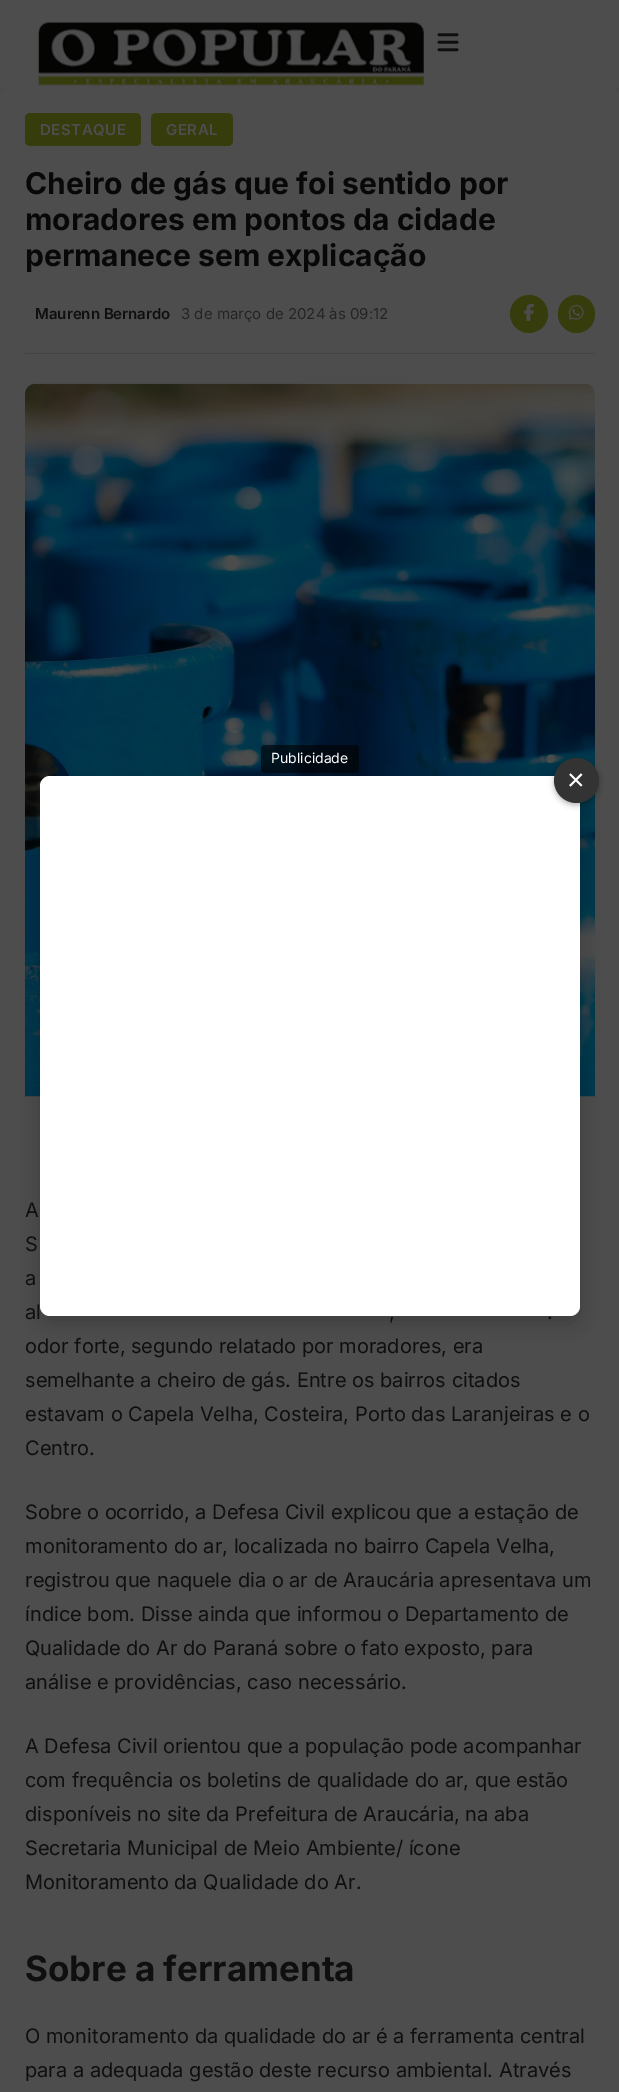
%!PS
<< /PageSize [619 2092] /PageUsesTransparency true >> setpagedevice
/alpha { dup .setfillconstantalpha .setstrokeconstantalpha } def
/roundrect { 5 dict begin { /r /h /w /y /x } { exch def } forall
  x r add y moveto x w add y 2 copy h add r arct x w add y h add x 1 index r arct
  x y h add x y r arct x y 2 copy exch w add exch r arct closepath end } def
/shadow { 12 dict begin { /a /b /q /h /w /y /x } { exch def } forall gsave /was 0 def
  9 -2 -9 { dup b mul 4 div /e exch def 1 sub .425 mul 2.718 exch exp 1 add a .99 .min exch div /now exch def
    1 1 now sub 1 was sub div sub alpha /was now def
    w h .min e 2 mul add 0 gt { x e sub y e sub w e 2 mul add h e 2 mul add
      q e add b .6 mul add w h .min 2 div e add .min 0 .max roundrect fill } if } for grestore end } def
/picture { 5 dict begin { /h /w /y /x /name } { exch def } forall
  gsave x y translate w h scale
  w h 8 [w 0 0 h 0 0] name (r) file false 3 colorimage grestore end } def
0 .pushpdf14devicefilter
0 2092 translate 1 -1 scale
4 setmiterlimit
0.29 setgray
0 0 619 2092 rectfill
0.302 setgray
0 0 619 88 rectfill
(img1.rgb) 38 22 386 64 picture
(img2.rgb) 437 33 22 19 picture
0 88 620 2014 10 roundrect fill
0.216 0.235 0.051 setrgbcolor
25 113 116 33 5 roundrect fill
/Inter-SemiBold [15 0 0 -15 0 0] selectfont
0.302 setgray
40 135 moveto 0.5 0 (DESTAQUE) ashow
0.216 0.235 0.051 setrgbcolor
151 113 82 33 5 roundrect fill
0.302 setgray
166 135 moveto 0.5 0 (GERAL) ashow
/Inter-Bold [30 0 0 -30 0 0] selectfont
0.031 setgray
25 194 moveto (Cheiro de gás que foi sentido por) show
25 230 moveto (moradores em pontos da cidade) show
25 266 moveto (permanece sem explicação) show
0.263 setgray
25 353 570 1 rectfill
/Inter-SemiBold [15 0 0 -15 0 0] selectfont
0.059 setgray
35 319 moveto (Maurenn Bernardo) show
/Inter-Regular [15 0 0 -15 0 0] selectfont
0.141 setgray
181 319 moveto (3 de março de 2024 às 09:12) show
0.216 0.235 0.051 setrgbcolor
newpath 529 314 19 0 360 arc closepath fill
(img3.rgb) 524 303 10 18 picture
558 295 37 38 18.5 roundrect fill
(img4.rgb) 568 304 16 16 picture
(img5.rgb) 25 383 570 714 picture
/Inter-Regular [20 0 0 -20 0 0] selectfont
0.059 setgray
25 1217 moveto (A) show
25 1251 moveto (S) show
25 1285 moveto (a) show
25 1319 moveto (al) show
389 1319 moveto (,) show
547 1319 moveto (.) show
25 1353 moveto (odor forte, segundo relatado por moradores, era) show
25 1387 moveto (semelhante a cheiro de gás. Entre os bairros citados) show
25 1421 moveto (estavam o Capela Velha, Costeira, Porto das Laranjeiras e o) show
25 1455 moveto (Centro.) show
25 1519 moveto (Sobre o ocorrido, a Defesa Civil explicou que a estação de) show
25 1553 moveto (monitoramento do ar, localizada no bairro Capela Velha,) show
25 1587 moveto (registrou que naquele dia o ar de Araucária apresentava um) show
25 1621 moveto (índice bom. Disse ainda que informou o Departamento de) show
25 1655 moveto (Qualidade do Ar do Paraná sobre o fato exposto, para) show
25 1689 moveto (análise e providências, caso necessário.) show
25 1753 moveto (A Defesa Civil orientou que a população pode acompanhar) show
25 1787 moveto (com frequência os boletins de qualidade do ar, que estão) show
25 1821 moveto (disponíveis no site da Prefeitura de Araucária, na aba) show
25 1855 moveto (Secretaria Municipal de Meio Ambiente/ ícone) show
25 1889 moveto (Monitoramento da Qualidade do Ar.) show
/Inter-Bold [35 0 0 -35 0 0] selectfont
25 1981 moveto (Sobre a ferramenta) show
/Inter-Regular [20 0 0 -20 0 0] selectfont
25 2043 moveto (O monitoramento da qualidade do ar é a ferramenta central) show
25 2077 moveto (para a adequada gestão deste recurso ambiental. Através) show
0 setgray
40 783 540 540 10 9.5 0.2 shadow
1 setgray
40 776 540 540 10 roundrect fill
0.6 alpha
0 setgray
261 745 98 28 4 roundrect fill
/Inter-Regular [14 0 0 -14 0 0] selectfont
1 alpha
1 setgray
271 763 moveto (Publicidade) show
0 setgray
554 760 45 45 22.5 3 0.3 shadow
0.2 setgray
newpath 576.5 780.5 22.5 0 360 arc closepath fill
/LiberationSans-Regular [30 0 0 -30 0 0] selectfont
1 setgray
567 790 moveto (×) show
.poppdf14devicefilter showpage
